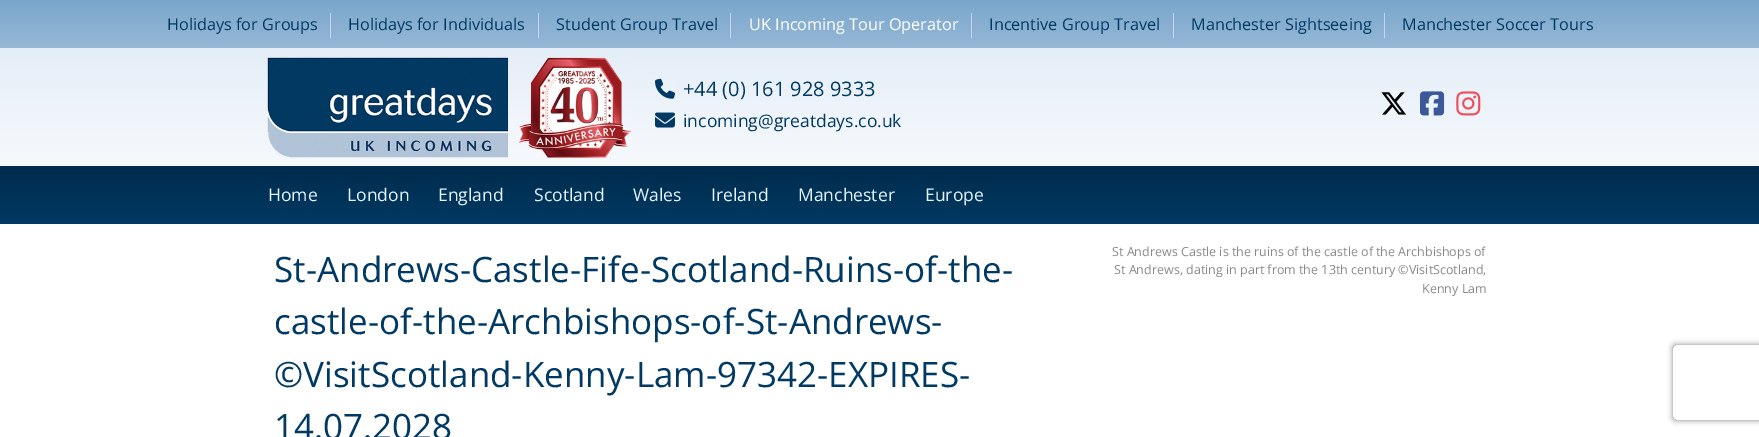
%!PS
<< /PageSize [1759 437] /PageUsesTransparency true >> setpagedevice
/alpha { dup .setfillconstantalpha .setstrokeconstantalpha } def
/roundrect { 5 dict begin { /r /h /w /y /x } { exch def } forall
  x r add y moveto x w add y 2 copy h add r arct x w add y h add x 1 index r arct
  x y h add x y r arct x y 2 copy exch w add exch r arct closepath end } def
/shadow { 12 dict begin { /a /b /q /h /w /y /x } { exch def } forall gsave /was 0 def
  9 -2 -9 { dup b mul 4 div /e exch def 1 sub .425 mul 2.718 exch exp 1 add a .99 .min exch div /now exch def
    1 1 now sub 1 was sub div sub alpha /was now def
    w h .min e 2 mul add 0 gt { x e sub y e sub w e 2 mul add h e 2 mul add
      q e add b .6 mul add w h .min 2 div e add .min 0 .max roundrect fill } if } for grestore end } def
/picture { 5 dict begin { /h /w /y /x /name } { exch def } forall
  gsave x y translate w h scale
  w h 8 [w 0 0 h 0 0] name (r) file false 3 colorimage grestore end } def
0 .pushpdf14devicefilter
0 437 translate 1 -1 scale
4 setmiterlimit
1 setgray
0 0 1759 437 rectfill
gsave newpath 0 48 moveto 1759 48 lineto 1759 166 lineto 0 166 lineto closepath clip newpath
<< /ShadingType 2 /ColorSpace /DeviceRGB /Coords [880 0 880 224] /Extend [true true] /Function << /FunctionType 2 /Domain [0 1] /C0 [0.863 0.914 0.961] /C1 [1 1 1] /N 1 >> >> shfill grestore
gsave newpath 0 0 moveto 1759 0 lineto 1759 48 lineto 0 48 lineto closepath clip newpath
<< /ShadingType 2 /ColorSpace /DeviceRGB /Coords [880 0 880 48] /Extend [true true] /Function << /FunctionType 2 /Domain [0 1] /C0 [0.478 0.651 0.8] /C1 [0.588 0.722 0.839] /N 1 >> >> shfill grestore
gsave newpath 1384 13 moveto 1385 13 lineto 1385 38 lineto 1384 38 lineto closepath clip newpath
<< /ShadingType 2 /ColorSpace /DeviceRGB /Coords [880 0 880 48] /Extend [true true] /Function << /FunctionType 2 /Domain [0 1] /C0 [0.741 0.827 0.902] /C1 [0.796 0.863 0.922] /N 1 >> >> shfill grestore
gsave newpath 1173 13 moveto 1174 13 lineto 1174 38 lineto 1173 38 lineto closepath clip newpath
<< /ShadingType 2 /ColorSpace /DeviceRGB /Coords [880 0 880 48] /Extend [true true] /Function << /FunctionType 2 /Domain [0 1] /C0 [0.741 0.827 0.902] /C1 [0.796 0.863 0.922] /N 1 >> >> shfill grestore
gsave newpath 971 13 moveto 972 13 lineto 972 38 lineto 971 38 lineto closepath clip newpath
<< /ShadingType 2 /ColorSpace /DeviceRGB /Coords [880 0 880 48] /Extend [true true] /Function << /FunctionType 2 /Domain [0 1] /C0 [0.741 0.827 0.902] /C1 [0.796 0.863 0.922] /N 1 >> >> shfill grestore
gsave newpath 730 13 moveto 731 13 lineto 731 38 lineto 730 38 lineto closepath clip newpath
<< /ShadingType 2 /ColorSpace /DeviceRGB /Coords [880 0 880 48] /Extend [true true] /Function << /FunctionType 2 /Domain [0 1] /C0 [0.741 0.827 0.902] /C1 [0.796 0.863 0.922] /N 1 >> >> shfill grestore
gsave newpath 538 13 moveto 539 13 lineto 539 38 lineto 538 38 lineto closepath clip newpath
<< /ShadingType 2 /ColorSpace /DeviceRGB /Coords [880 0 880 48] /Extend [true true] /Function << /FunctionType 2 /Domain [0 1] /C0 [0.741 0.827 0.902] /C1 [0.796 0.863 0.922] /N 1 >> >> shfill grestore
gsave newpath 330 13 moveto 331 13 lineto 331 38 lineto 330 38 lineto closepath clip newpath
<< /ShadingType 2 /ColorSpace /DeviceRGB /Coords [880 0 880 48] /Extend [true true] /Function << /FunctionType 2 /Domain [0 1] /C0 [0.741 0.827 0.902] /C1 [0.796 0.863 0.922] /N 1 >> >> shfill grestore
/OpenSans-Regular [16.25 0 0 -16.25 0 0] selectfont
0 0.224 0.388 setrgbcolor
167 30 moveto (Holidays for Groups) show
348 30 moveto (Holidays for Individuals) show
556 30 moveto (Student Group Travel) show
1 setgray
749 30 moveto (UK Incoming Tour Operator) show
0 0.224 0.388 setrgbcolor
989 30 moveto (Incentive Group Travel) show
1191 30 moveto (Manchester Sightseeing) show
1402 30 moveto (Manchester Soccer Tours) show
(img1.rgb) 267 57 365 101 picture
(img2.rgb) 655 78 20 21 picture
/OpenSans-Regular [20 0 0 -20 0 0] selectfont
683 96 moveto (+44 \(0\) 161 928 9333) show
(img3.rgb) 655 112 20 16 picture
/OpenSans-Regular [17.5 0 0 -17.5 0 0] selectfont
683 127 moveto (incoming@greatdays.co.uk) show
(img4.rgb) 1381 92 25 23 picture
(img5.rgb) 1420 91 25 25 picture
(img6.rgb) 1456 91 25 25 picture
gsave newpath 0 166 moveto 1759 166 lineto 1759 224 lineto 0 224 lineto closepath clip newpath
<< /ShadingType 2 /ColorSpace /DeviceRGB /Coords [880 166 880 224] /Extend [true true] /Function << /FunctionType 2 /Domain [0 1] /C0 [0 0.173 0.302] /C1 [0 0.224 0.388] /N 1 >> >> shfill grestore
0.902 0.957 1 setrgbcolor
268 201 moveto (Home) show
347 201 moveto (London) show
438 201 moveto (England) show
534 201 moveto (Scotland) show
633 201 moveto (Wales) show
711 201 moveto (Ireland) show
798 201 moveto (Manchester) show
925 201 moveto (Europe) show
/OpenSans-Regular [35 0 0 -35 0 0] selectfont
0 0.224 0.388 setrgbcolor
274 282 moveto (St-Andrews-Castle-Fife-Scotland-Ruins-of-the-) show
274 334 moveto (castle-of-the-Archbishops-of-St-Andrews-) show
274 387 moveto (©VisitScotland-Kenny-Lam-97342-EXPIRES-) show
274 439 moveto (14.07.2028) show
/OpenSans-Regular [12.5 0 0 -12.5 0 0] selectfont
0.533 setgray
1112 256 moveto (St Andrews Castle is the ruins of the castle of the Archbishops of) show
1114 274 moveto (St Andrews, dating in part from the 13th century ©VisitScotland,) show
1422 293 moveto (Kenny Lam) show
gsave
newpath 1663 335 moveto 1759 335 lineto 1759 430 lineto 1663 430 lineto closepath 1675.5 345 moveto 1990.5 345 lineto 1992 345 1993 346 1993 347.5 curveto 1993 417.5 lineto 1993 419 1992 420 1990.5 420 curveto 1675.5 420 lineto 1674 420 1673 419 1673 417.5 curveto 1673 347.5 lineto 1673 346 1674 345 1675.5 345 curveto closepath eoclip newpath
0.502 setgray
1673 345 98 75 2.5 3 1 shadow
grestore
.poppdf14devicefilter showpage
